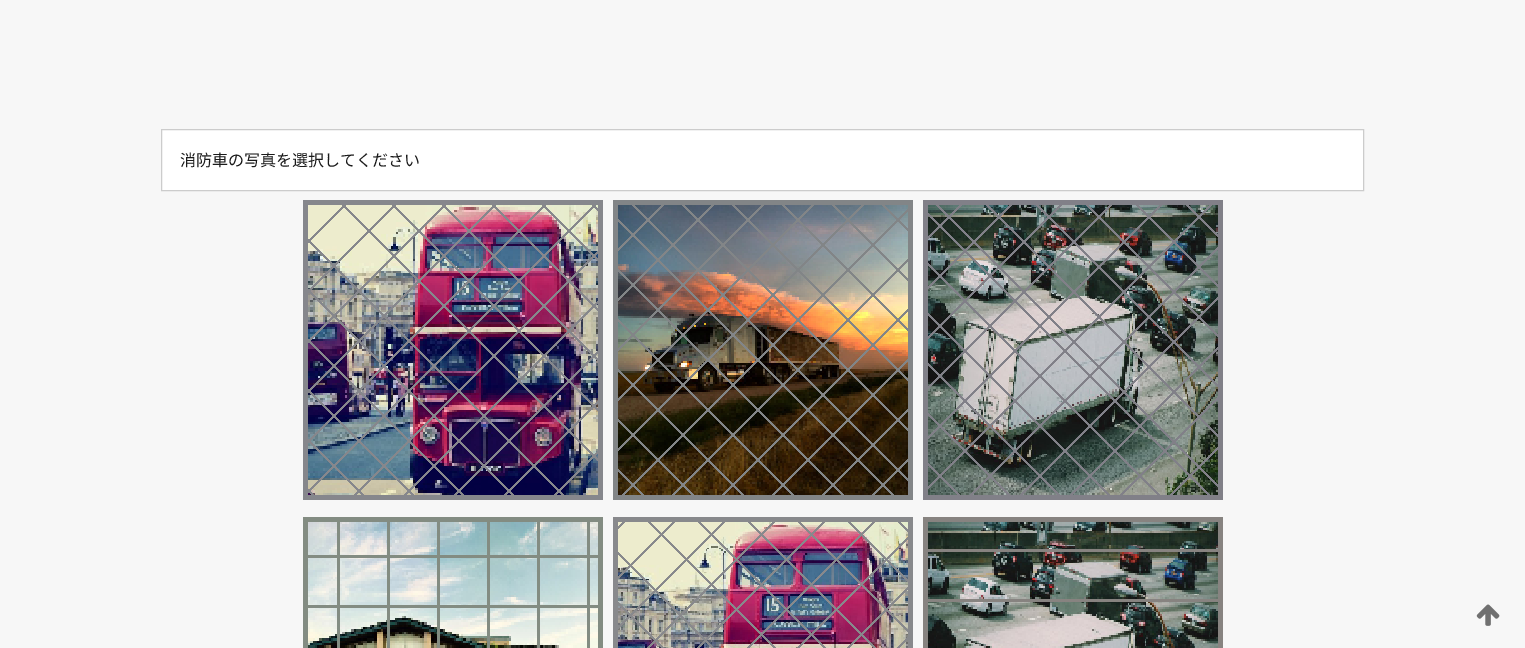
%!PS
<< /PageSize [1525 648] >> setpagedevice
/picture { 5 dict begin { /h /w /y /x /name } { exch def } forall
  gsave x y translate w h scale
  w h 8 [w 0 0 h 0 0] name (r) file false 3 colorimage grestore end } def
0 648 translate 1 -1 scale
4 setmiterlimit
0.969 setgray
0 0 1525 648 rectfill
1 setgray
newpath 161.5 129.5 moveto 1363.5 129.5 lineto 1363.5 190.5 lineto 161.5 190.5 lineto closepath gsave fill grestore
0.8 setgray
stroke
/NotoSansSC-Thin [16 0 0 -16 0 0] selectfont
0.102 setgray
180 166 moveto (消防車の写真を選択してください) show
(img1.rgb) 303 200 300 300 picture
(img2.rgb) 613 200 300 300 picture
(img3.rgb) 923 200 300 300 picture
(img4.rgb) 303 517 300 131 picture
(img5.rgb) 613 517 300 131 picture
(img6.rgb) 923 517 300 131 picture
(img7.rgb) 1476 604 24 22 picture
showpage
